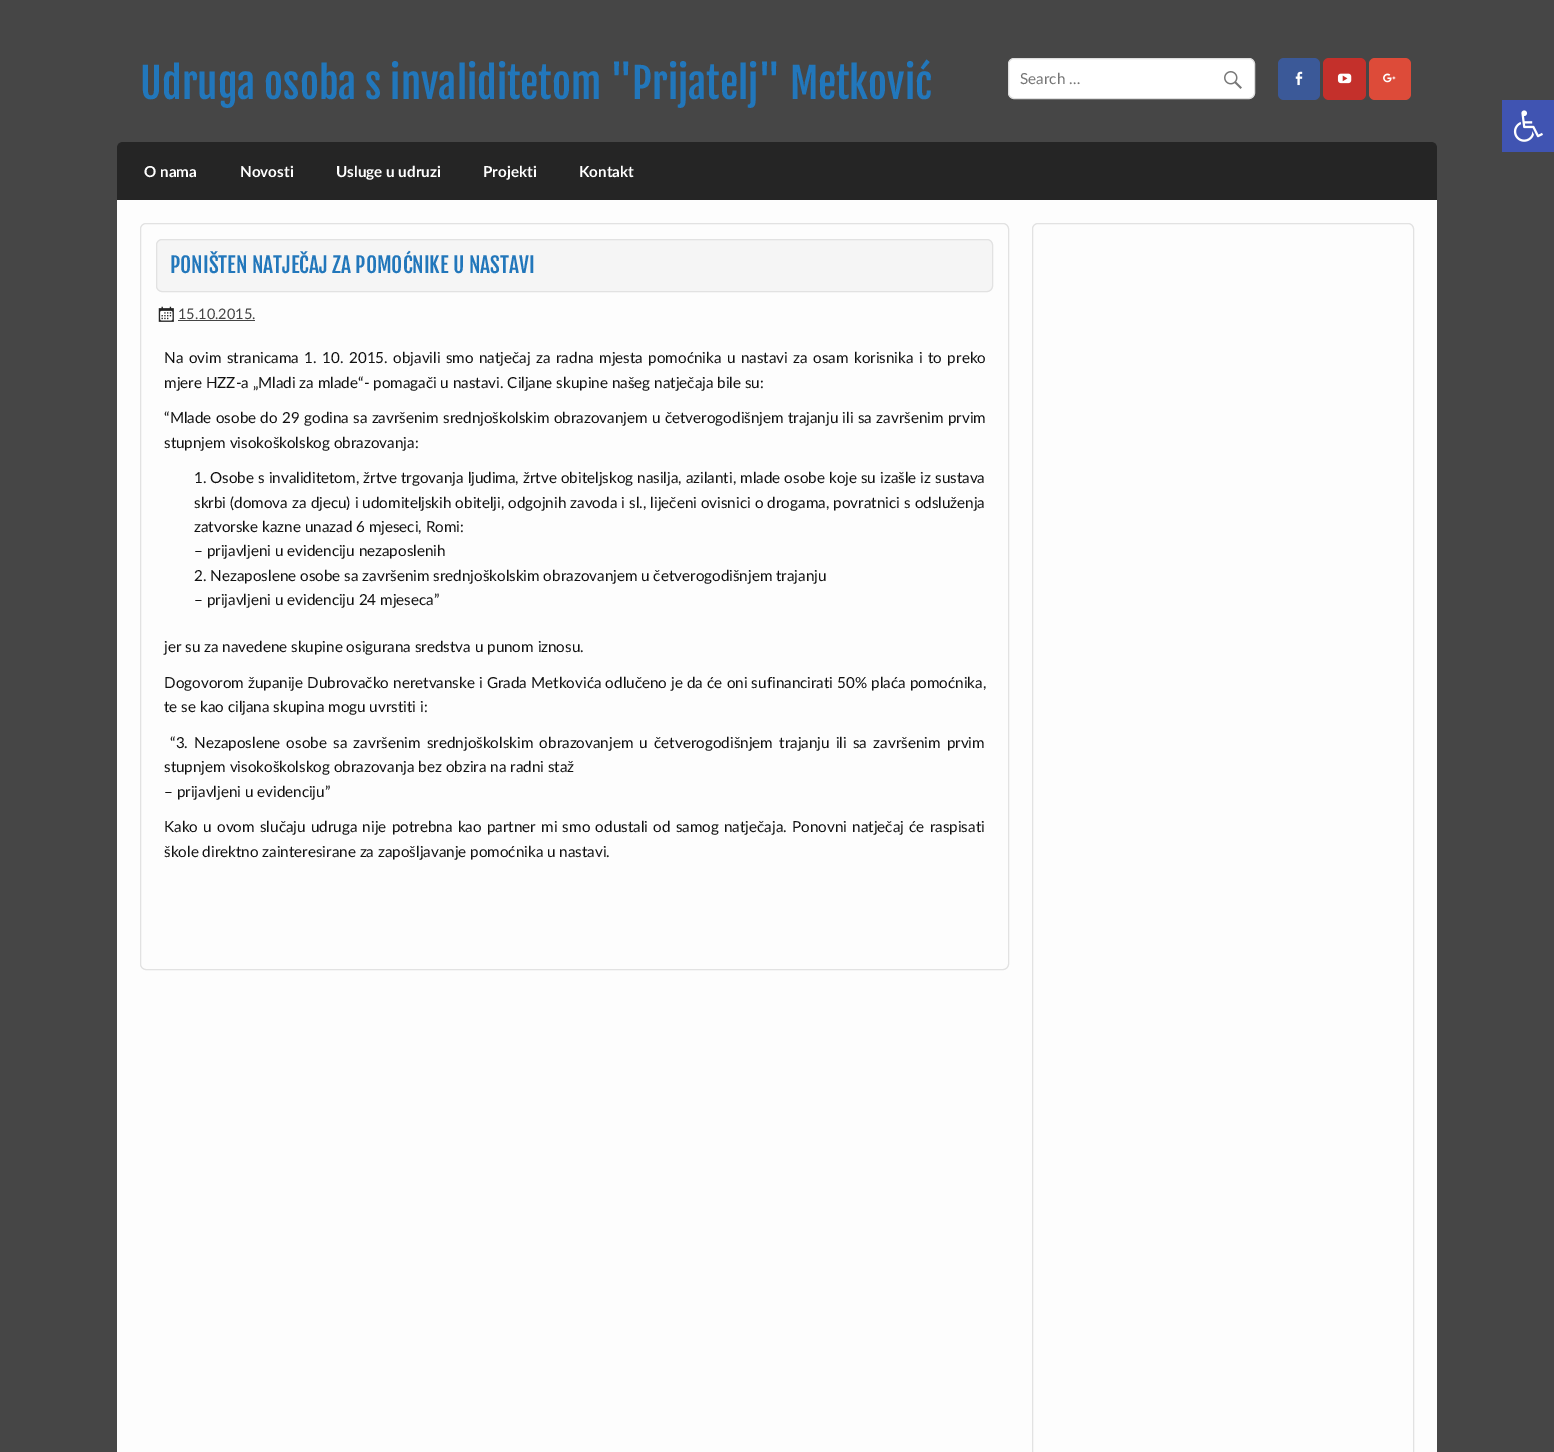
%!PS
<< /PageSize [1554 1452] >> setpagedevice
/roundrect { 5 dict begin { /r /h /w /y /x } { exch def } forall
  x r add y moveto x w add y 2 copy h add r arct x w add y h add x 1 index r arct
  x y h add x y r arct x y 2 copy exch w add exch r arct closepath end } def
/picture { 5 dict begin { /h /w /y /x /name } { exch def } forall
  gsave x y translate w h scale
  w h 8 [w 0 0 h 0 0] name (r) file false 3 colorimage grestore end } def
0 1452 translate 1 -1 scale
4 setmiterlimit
0.275 setgray
0 0 1554 1452 rectfill
/FjallaOne-Regular [41 0 0 -41 0 0] selectfont
0.133 0.467 0.733 setrgbcolor
140 99 moveto (Udruga osoba s invaliditetom "Prijatelj" Metković) show
1 setgray
1008.5 58.5 246 40 5.5 roundrect gsave fill grestore
0.867 setgray
stroke
/Lato-Regular [15.2 0 0 -15.2 0 0] selectfont
0.459 setgray
1020 84 moveto (Search …) show
(img1.rgb) 1224 71 18 18 picture
0.231 0.349 0.596 setrgbcolor
1278 58 42 42 6 roundrect fill
(img2.rgb) 1295 71 8 15 picture
0.769 0.188 0.169 setrgbcolor
1323 58 43 42 6 roundrect fill
(img3.rgb) 1337 73 15 11 picture
0.867 0.294 0.224 setrgbcolor
1369 58 42 42 6 roundrect fill
(img4.rgb) 1383 73 13 10 picture
0.145 setgray
newpath 123 142 moveto 1431 142 lineto 1434.5 142 1437 144.5 1437 148 curveto 1437 200 lineto 117 200 lineto 117 148 lineto 117 144.5 119.5 142 123 142 curveto closepath fill
/Lato-Bold [15.2 0 0 -15.2 0 0] selectfont
1 setgray
144 177 moveto (O nama) show
240 177 moveto (Novosti) show
336 177 moveto (Usluge u udruzi) show
483 177 moveto (Projekti) show
579 177 moveto (Kontakt) show
0.992 setgray
117 200 1320 1252 rectfill
0.886 setgray
140.5 223.5 868 746 5.5 roundrect stroke
0.961 setgray
156.5 239.5 836 52 5.5 roundrect gsave fill grestore
0.886 setgray
stroke
/FjallaOne-Regular [21.25 0 0 -21.25 0 0] selectfont
0.133 0.467 0.733 setrgbcolor
170 273 moveto (PONIŠTEN NATJEČAJ ZA POMOĆNIKE U NASTAVI) show
(img5.rgb) 158 306 16 16 picture
/Lato-Regular [14.5 0 0 -14.5 0 0] selectfont
0.267 setgray
178 319 moveto (15.10.2015.) show
178 320 77 1 rectfill
/Lato-Regular [15.2 0 0 -15.2 0 0] selectfont
0.067 setgray
164 363 moveto 1.6 0 32 (Na ovim stranicama 1. 10. 2015. objavili smo natječaj za radna mjesta pomoćnika u nastavi za osam korisnika i to preko) widthshow
164 388 moveto (mjere HZZ-a „Mladi za mlade“- pomagači u nastavi. Ciljane skupine našeg natječaja bile su:) show
164 423 moveto 0.5 0 32 (“Mlade osobe do 29 godina sa završenim srednjoškolskim obrazovanjem u četverogodišnjem trajanju ili sa završenim prvim) widthshow
164 448 moveto (stupnjem visokoškolskog obrazovanja:) show
194 483 moveto (1.) show
210 483 moveto 0.2 0 32 (Osobe s invaliditetom, žrtve trgovanja ljudima, žrtve obiteljskog nasilja, azilanti, mlade osobe koje su izašle iz sustava) widthshow
194 508 moveto 0.25 0 32 (skrbi \(domova za djecu\) i udomiteljskih obitelji, odgojnih zavoda i sl., liječeni ovisnici o drogama, povratnici s odsluženja) widthshow
194 532 moveto (zatvorske kazne unazad 6 mjeseci, Romi:) show
194 556 moveto (– prijavljeni u evidenciju nezaposlenih) show
194 581 moveto (2. Nezaposlene osobe sa završenim srednjoškolskim obrazovanjem u četverogodišnjem trajanju) show
194 605 moveto (– prijavljeni u evidenciju 24 mjeseca”) show
164 652 moveto (jer su za navedene skupine osigurana sredstva u punom iznosu.) show
164 688 moveto 0.25 0 32 (Dogovorom županije Dubrovačko neretvanske i Grada Metkovića odlučeno je da će oni sufinancirati 50% plaća pomoćnika,) widthshow
164 712 moveto (te se kao ciljana skupina mogu uvrstiti i:) show
170 748 moveto 2.4 0 32 (“3. Nezaposlene osobe sa završenim srednjoškolskim obrazovanjem u četverogodišnjem trajanju ili sa završenim prvim) widthshow
164 772 moveto (stupnjem visokoškolskog obrazovanja bez obzira na radni staž) show
164 797 moveto (– prijavljeni u evidenciju”) show
164 832 moveto 1.4 0 32 (Kako u ovom slučaju udruga nije potrebna kao partner mi smo odustali od samog natječaja. Ponovni natječaj će raspisati) widthshow
164 857 moveto (škole direktno zainteresirane za zapošljavanje pomoćnika u nastavi.) show
0.886 setgray
1032.5 223.5 381 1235 5.5 roundrect stroke
0.251 0.329 0.698 setrgbcolor
1502 100 52 52 rectfill
(img6.rgb) 1513 110 30 32 picture
showpage
